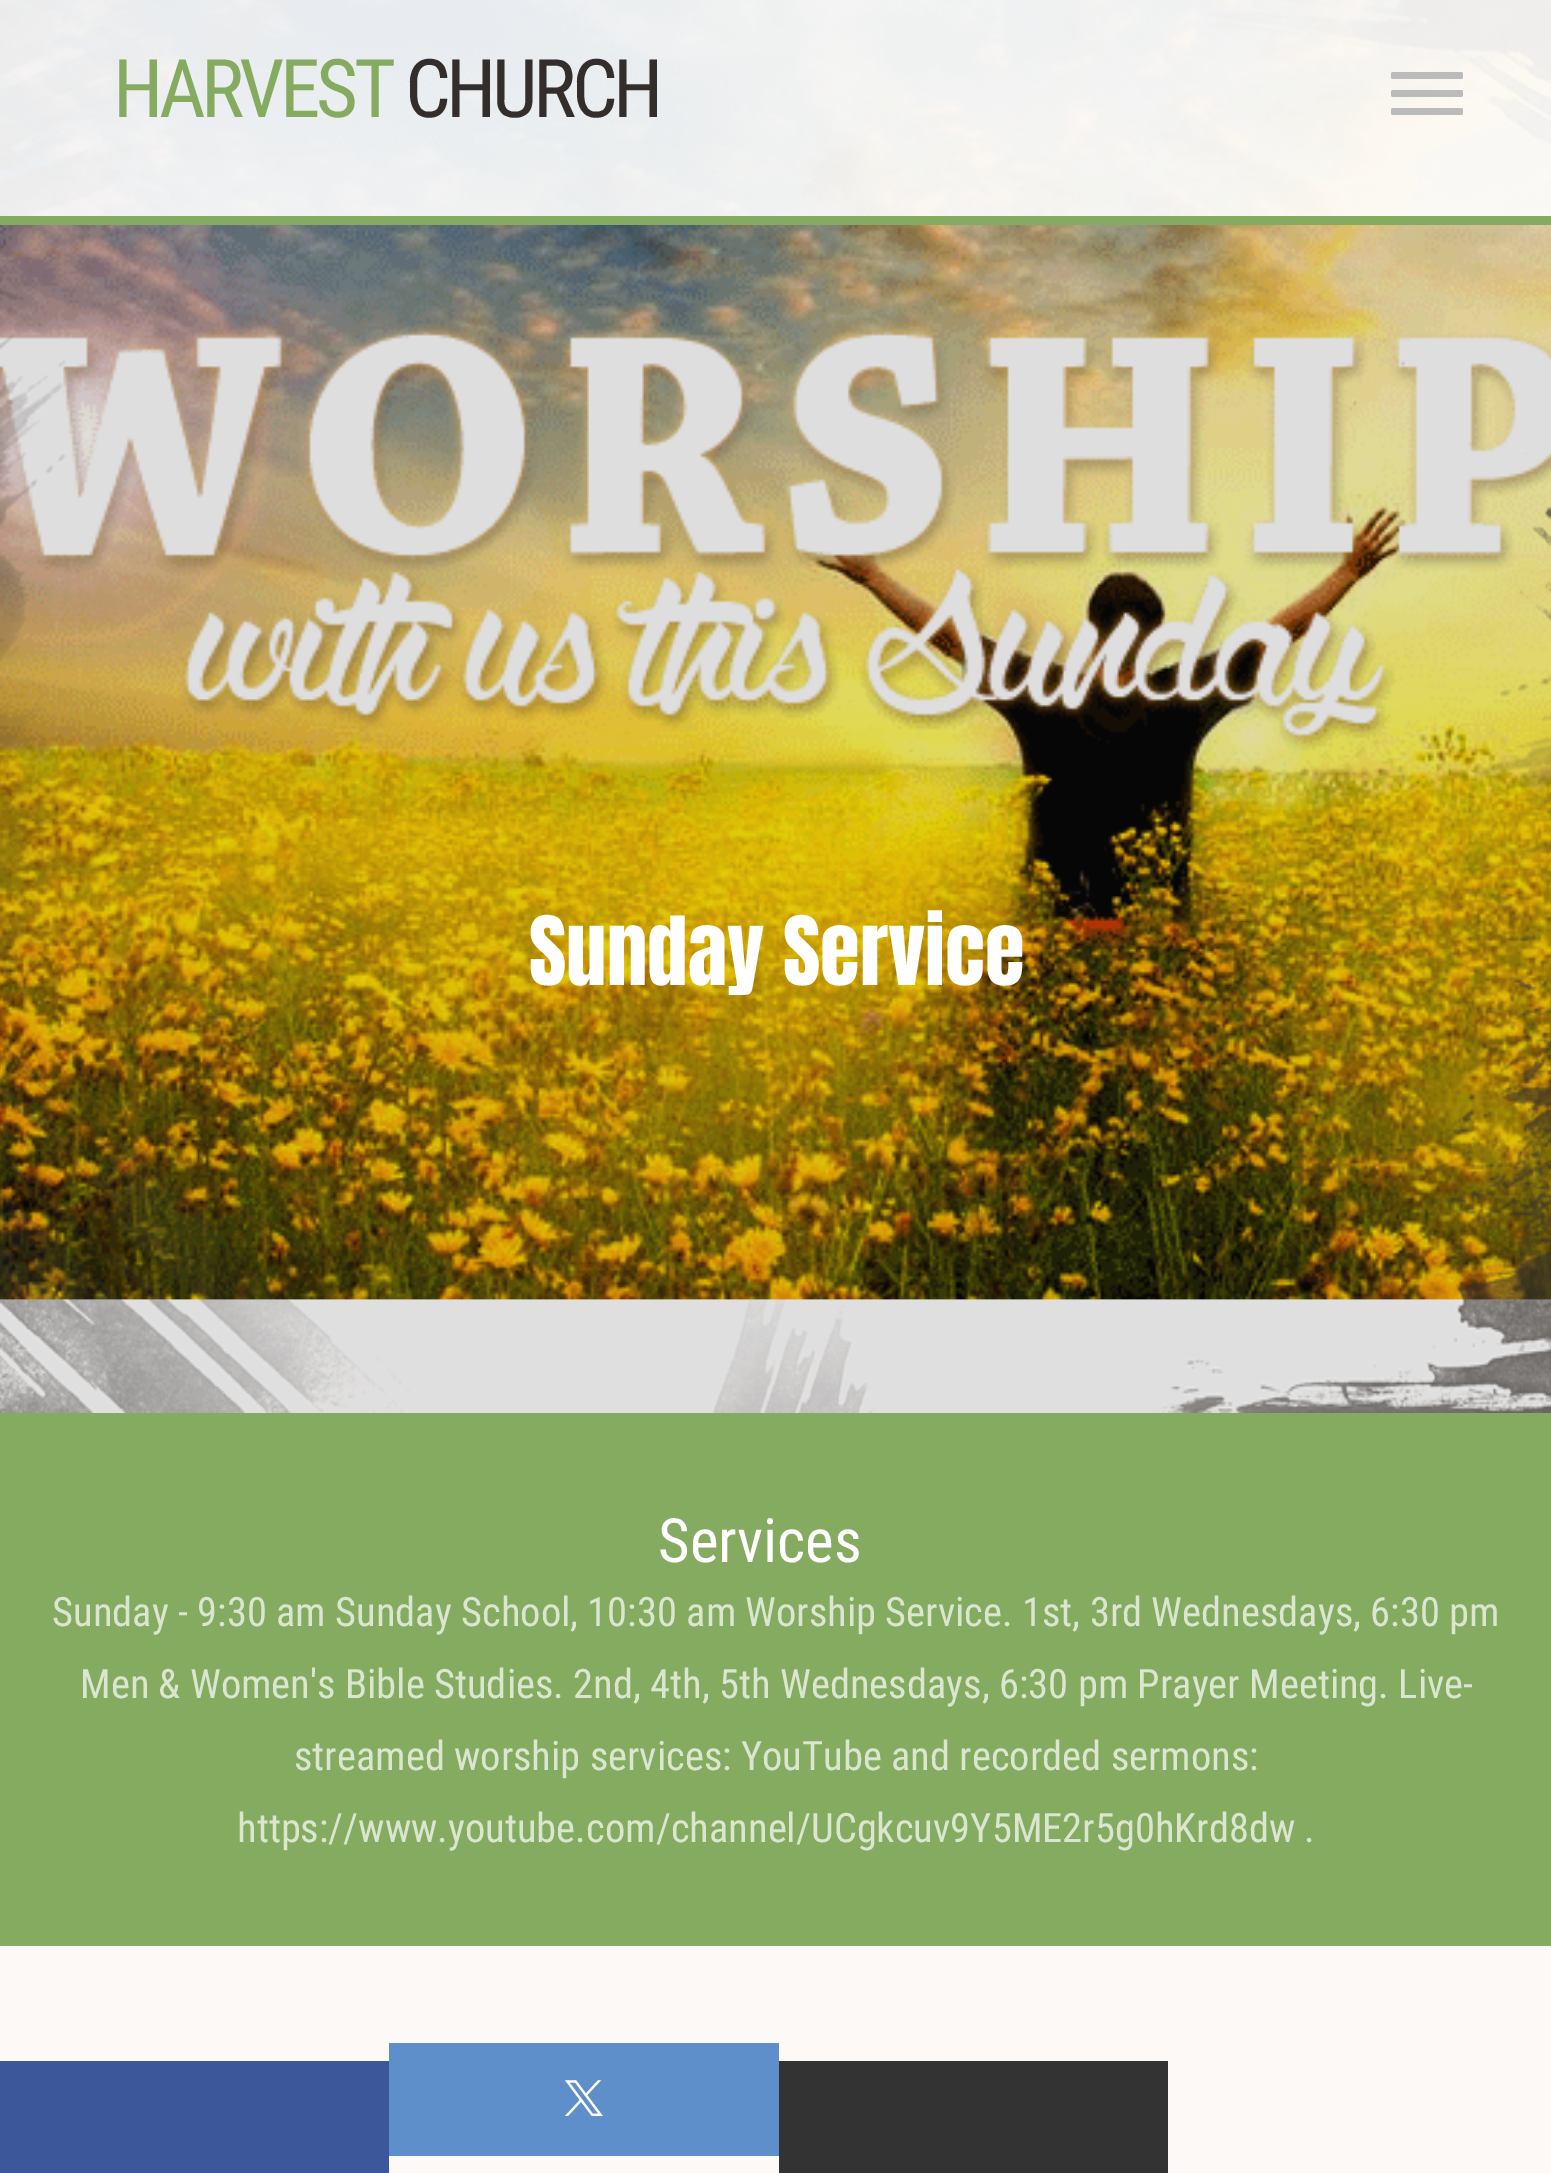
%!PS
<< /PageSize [1551 2173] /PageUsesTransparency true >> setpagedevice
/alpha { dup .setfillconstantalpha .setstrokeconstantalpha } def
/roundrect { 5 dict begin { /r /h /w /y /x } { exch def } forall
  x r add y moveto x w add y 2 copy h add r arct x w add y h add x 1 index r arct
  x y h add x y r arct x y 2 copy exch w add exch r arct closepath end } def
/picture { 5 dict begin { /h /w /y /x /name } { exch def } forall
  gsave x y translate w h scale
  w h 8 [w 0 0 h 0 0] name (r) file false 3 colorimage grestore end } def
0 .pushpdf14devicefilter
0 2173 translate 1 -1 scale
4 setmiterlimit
1 setgray
0 0 1551 2173 rectfill
(img1.rgb) 0 0 1551 1300 picture
(img2.rgb) 0 0 1551 1413 picture
0.9 alpha
0 0 1551 216 rectfill
1 alpha
0.522 0.671 0.38 setrgbcolor
0 216 1551 9 rectfill
/RobotoCondensed-Regular [81 0 0 -81 0 0] selectfont
113 117 moveto -4.5 0 (HARVEST) ashow
0.2 0.18 0.169 setrgbcolor
405 117 moveto -4.5 0 (CHURCH) ashow
0.733 setgray
1391 72 72 7 2 roundrect fill
1391 90 72 7 2 roundrect fill
1391 108 72 7 2 roundrect fill
/Anton-Regular [81 0 0 -81 0 0] selectfont
1 setgray
529 985 moveto (Sunday Service) show
0.522 0.671 0.38 setrgbcolor
0 1413 1551 533 rectfill
/RobotoCondensed-Regular [61 0 0 -61 0 0] selectfont
1 setgray
658 1562 moveto (Services) show
/RobotoCondensed-Regular [40.5 0 0 -40.5 0 0] selectfont
0.855 0.902 0.816 setrgbcolor
52 1626 moveto (Sunday - 9:30 am Sunday School, 10:30 am Worship Service. 1st, 3rd Wednesdays, 6:30 pm) show
80 1698 moveto (Men & Women's Bible Studies. 2nd, 4th, 5th Wednesdays, 6:30 pm Prayer Meeting. Live-) show
294 1770 moveto (streamed worship services: YouTube and recorded sermons:) show
237 1842 moveto (https://www.youtube.com/channel/UCgkcuv9Y5ME2r5g0hKrd8dw .) show
0.988 0.976 0.969 setrgbcolor
0 1946 1551 227 rectfill
0.235 0.341 0.604 setrgbcolor
0 2061 389 112 rectfill
0.373 0.561 0.796 setrgbcolor
389 2043 390 113 rectfill
(img3.rgb) 565 2080 38 36 picture
0.2 setgray
779 2061 389 112 rectfill
.poppdf14devicefilter showpage
